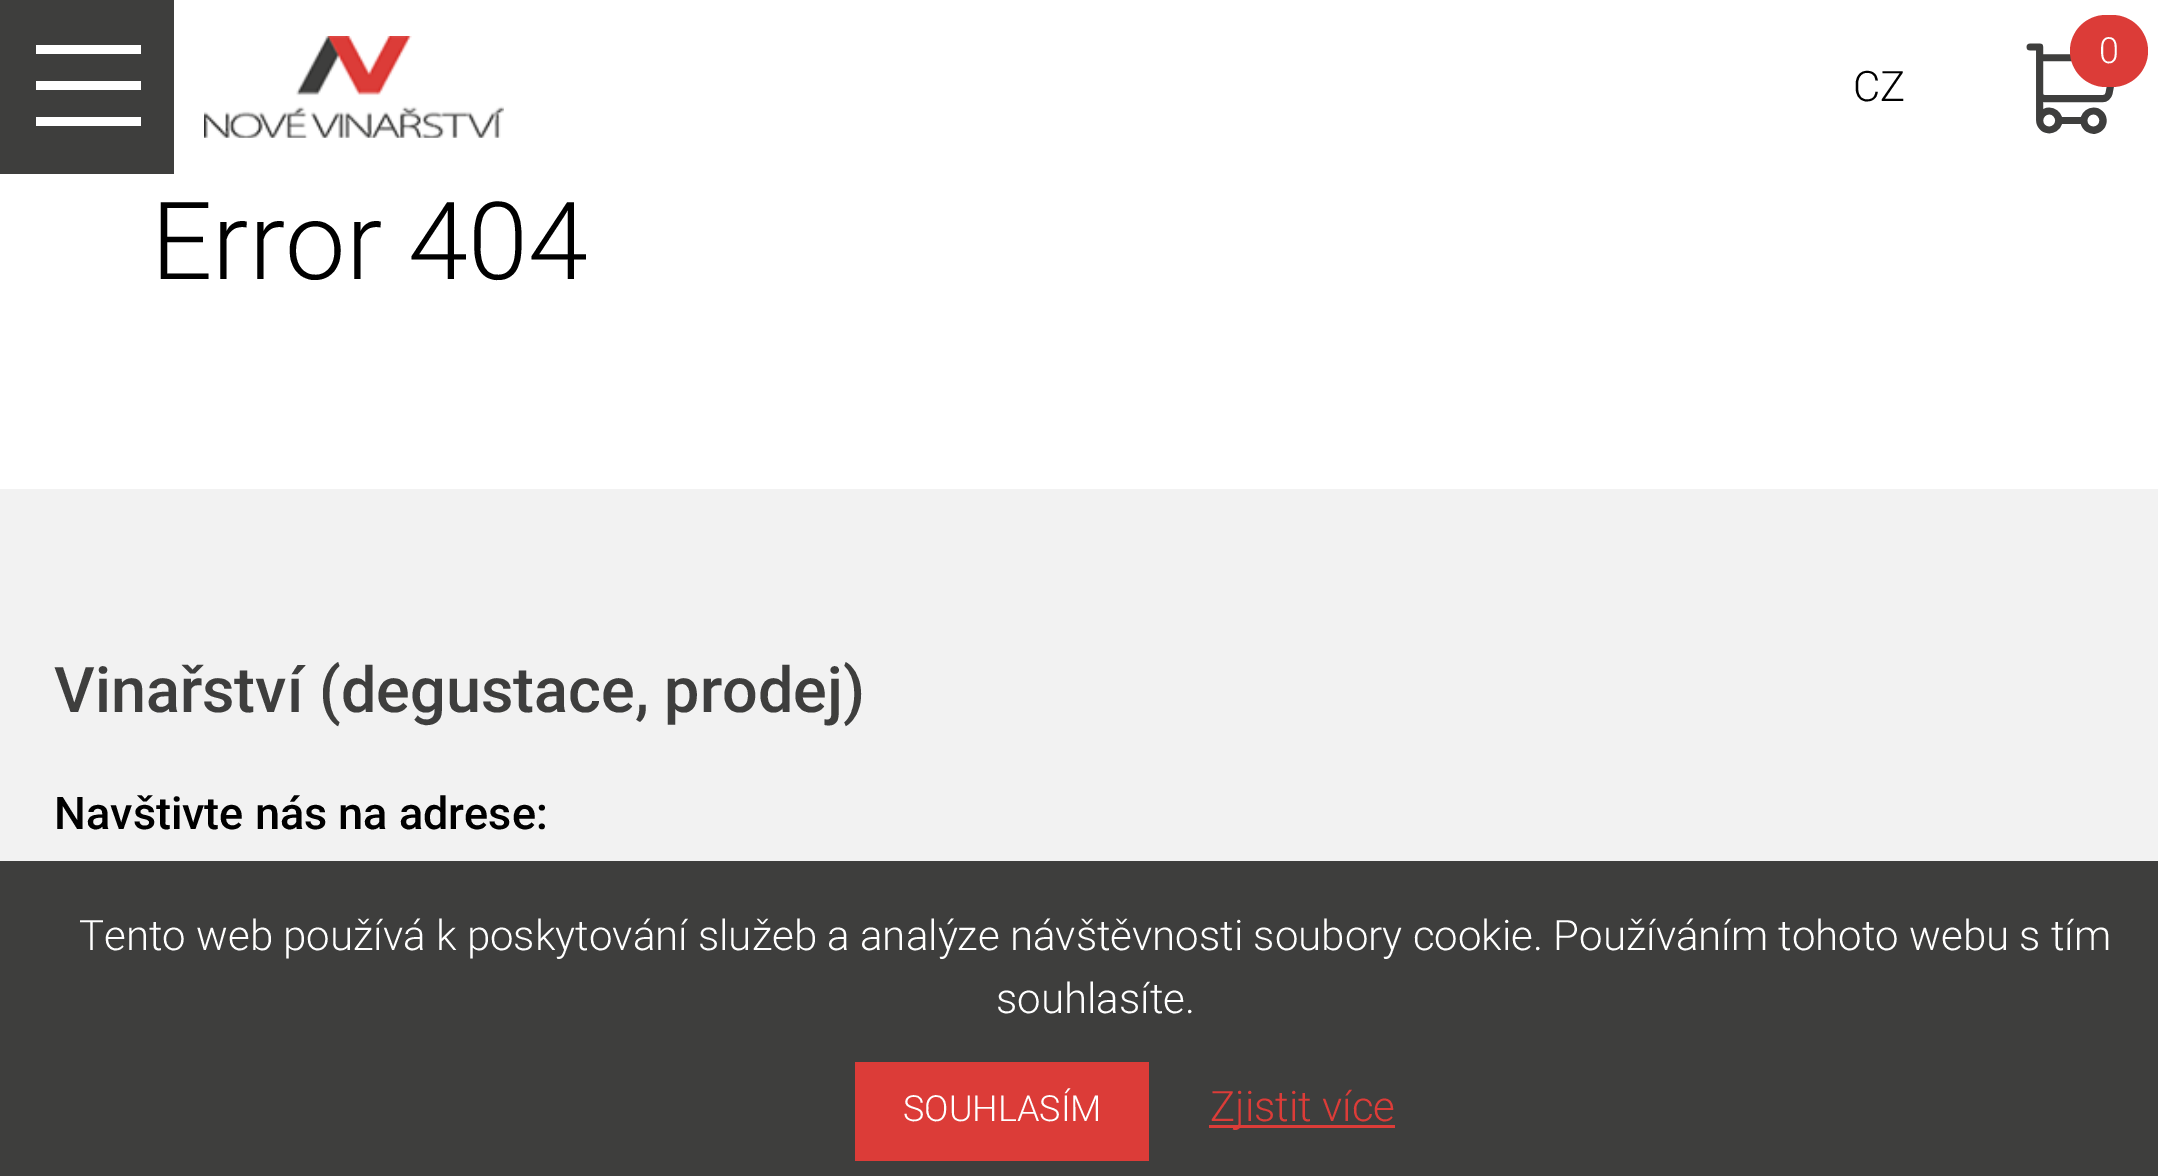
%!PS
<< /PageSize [2158 1176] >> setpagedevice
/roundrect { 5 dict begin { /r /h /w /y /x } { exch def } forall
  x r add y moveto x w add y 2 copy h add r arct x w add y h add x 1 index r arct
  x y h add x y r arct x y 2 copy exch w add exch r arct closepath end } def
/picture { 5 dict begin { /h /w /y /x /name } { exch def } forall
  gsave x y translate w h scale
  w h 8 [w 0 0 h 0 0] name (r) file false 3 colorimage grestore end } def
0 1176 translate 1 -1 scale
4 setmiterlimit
1 setgray
0 0 2158 1176 rectfill
0.243 0.243 0.239 setrgbcolor
0 0 174 174 rectfill
1 setgray
36 81 105 9 rectfill
36 45 105 9 rectfill
36 117 105 9 rectfill
(img1.rgb) 204 36 300 102 picture
(img2.rgb) 2026 43 88 91 picture
0.863 0.235 0.22 setrgbcolor
2070 15 78 72 36 roundrect fill
/Roboto-Light [36 0 0 -36 0 0] selectfont
1 setgray
2099 63 moveto (0) show
/Roboto-Light [42 0 0 -42 0 0] selectfont
0 setgray
1853 101 moveto (CZ) show
/Roboto-Light [108 0 0 -108 0 0] selectfont
151 279 moveto (Error 404) show
0.949 setgray
0 489 2158 372 rectfill
/Roboto-Medium [63 0 0 -63 0 0] selectfont
0.243 0.243 0.239 setrgbcolor
54 712 moveto (Vinařství \(degustace, prodej\)) show
/Roboto-Medium [45 0 0 -45 0 0] selectfont
0 setgray
54 829 moveto (Navštivte nás na adrese:) show
0.243 0.243 0.239 setrgbcolor
0 861 2158 315 rectfill
/Roboto-Light [42 0 0 -42 0 0] selectfont
1 setgray
79 950 moveto (Tento web používá k poskytování služeb a analýze návštěvnosti soubory cookie. Používáním tohoto webu s tím) show
996 1013 moveto (souhlasíte.) show
0.863 0.235 0.22 setrgbcolor
855 1062 294 99 rectfill
/Roboto-Light [36 0 0 -36 0 0] selectfont
1 setgray
903 1121 moveto (SOUHLASÍM) show
0.863 0.235 0.22 setrgbcolor
1209 1125 186 3 rectfill
/Roboto-Light [42 0 0 -42 0 0] selectfont
1210 1121 moveto (Zjistit více) show
showpage
